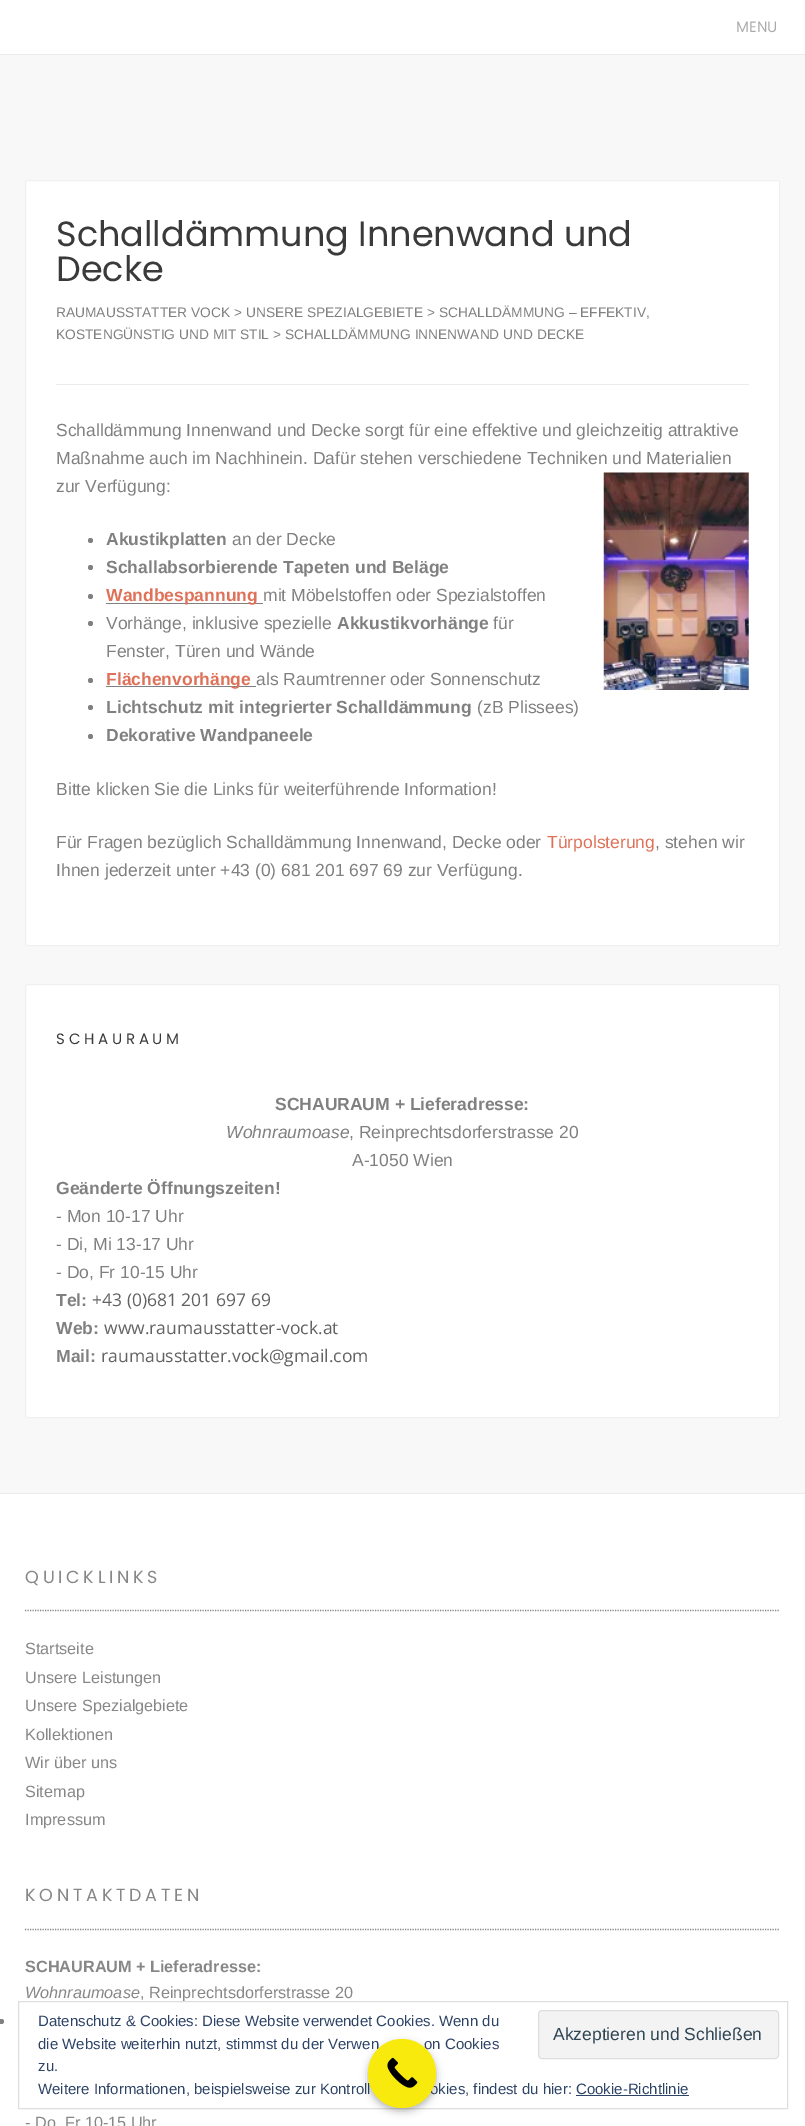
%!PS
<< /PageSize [805 2126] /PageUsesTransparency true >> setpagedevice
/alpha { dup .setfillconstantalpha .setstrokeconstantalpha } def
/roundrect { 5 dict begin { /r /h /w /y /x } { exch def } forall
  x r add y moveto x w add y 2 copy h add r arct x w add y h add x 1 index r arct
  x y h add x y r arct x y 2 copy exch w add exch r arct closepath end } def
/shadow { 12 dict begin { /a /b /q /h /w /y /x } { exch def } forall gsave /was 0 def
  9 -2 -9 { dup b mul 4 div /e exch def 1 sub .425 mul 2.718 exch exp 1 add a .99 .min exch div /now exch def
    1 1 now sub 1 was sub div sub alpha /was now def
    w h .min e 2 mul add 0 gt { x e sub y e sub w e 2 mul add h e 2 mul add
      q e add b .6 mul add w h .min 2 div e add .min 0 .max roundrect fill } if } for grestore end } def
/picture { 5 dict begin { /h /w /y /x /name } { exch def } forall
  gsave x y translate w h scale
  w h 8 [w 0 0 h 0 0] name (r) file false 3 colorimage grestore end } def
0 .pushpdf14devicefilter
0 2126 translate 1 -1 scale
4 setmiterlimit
0.973 setgray
0 0 805 2126 rectfill
1 setgray
0 0 805 54 rectfill
0.922 setgray
0 54 805 1 rectfill
/Poppins-Regular [15 0 0 -15 0 0] selectfont
0.667 setgray
736 32 moveto (MENU) show
1 setgray
25.5 180.5 754 765 2 roundrect gsave fill grestore
0.941 setgray
stroke
0.922 setgray
56 384 693 1 rectfill
/Poppins-Regular [35 0 0 -35 0 0] selectfont
0.227 setgray
56 246 moveto (Schalldämmung Innenwand und) show
56 281 moveto (Decke) show
/LiberationSans-Regular [13.75 0 0 -13.75 0 0] selectfont
0.502 setgray
56 317 moveto (RAUMAUSSTATTER VOCK > UNSERE SPEZIALGEBIETE > SCHALLDÄMMUNG – EFFEKTIV,) show
56 339 moveto (KOSTENGÜNSTIG UND MIT STIL > SCHALLDÄMMUNG INNENWAND UND DECKE) show
/LiberationSans-Regular [17.5 0 0 -17.5 0 0] selectfont
56 436 moveto (Schalldämmung Innenwand und Decke sorgt für eine effektive und gleichzeitig attraktive) show
56 464 moveto (Maßnahme auch im Nachhinein. Dafür stehen verschiedene Techniken und Materialien) show
56 492 moveto (zur Verfügung:) show
(img1.rgb) 603 472 146 218 picture
newpath 90.5 540.5 2.5 0 360 arc closepath fill
/LiberationSans-Bold [17.5 0 0 -17.5 0 0] selectfont
106 545 moveto (Akustikplatten) show
/LiberationSans-Regular [17.5 0 0 -17.5 0 0] selectfont
232 545 moveto (an der Decke) show
newpath 90.5 567.5 2.5 0 360 arc closepath fill
/LiberationSans-Bold [17.5 0 0 -17.5 0 0] selectfont
106 573 moveto (Schallabsorbierende Tapeten und Beläge) show
newpath 90.5 596.5 2.5 0 360 arc closepath fill
106 603 157 1 rectfill
0.871 0.443 0.345 setrgbcolor
106 601 moveto (Wandbespannung) show
/LiberationSans-Regular [17.5 0 0 -17.5 0 0] selectfont
0.502 setgray
263 601 moveto (mit Möbelstoffen oder Spezialstoffen) show
newpath 90.5 623.5 2.5 0 360 arc closepath fill
106 629 moveto (Vorhänge, inklusive spezielle) show
/LiberationSans-Bold [17.5 0 0 -17.5 0 0] selectfont
337 629 moveto (Akkustikvorhänge) show
/LiberationSans-Regular [17.5 0 0 -17.5 0 0] selectfont
493 629 moveto (für) show
106 657 moveto (Fenster, Türen und Wände) show
newpath 90.5 680.5 2.5 0 360 arc closepath fill
106 686 150 1 rectfill
/LiberationSans-Bold [17.5 0 0 -17.5 0 0] selectfont
0.871 0.443 0.345 setrgbcolor
106 685 moveto (Flächenvorhänge) show
/LiberationSans-Regular [17.5 0 0 -17.5 0 0] selectfont
0.502 setgray
256 685 moveto (als Raumtrenner oder Sonnenschutz) show
newpath 90.5 707.5 2.5 0 360 arc closepath fill
/LiberationSans-Bold [17.5 0 0 -17.5 0 0] selectfont
106 713 moveto (Lichtschutz mit integrierter Schalldämmung) show
/LiberationSans-Regular [17.5 0 0 -17.5 0 0] selectfont
477 713 moveto (\(zB Plissees\)) show
newpath 90.5 736.5 2.5 0 360 arc closepath fill
/LiberationSans-Bold [17.5 0 0 -17.5 0 0] selectfont
106 741 moveto (Dekorative Wandpaneele) show
/LiberationSans-Regular [17.5 0 0 -17.5 0 0] selectfont
56 795 moveto (Bitte klicken Sie die Links für weiterführende Information!) show
56 848 moveto (Für Fragen bezüglich Schalldämmung Innenwand, Decke oder) show
0.871 0.443 0.345 setrgbcolor
547 848 moveto (Türpolsterung) show
0.502 setgray
655 848 moveto (, stehen wir) show
56 876 moveto (Ihnen jederzeit unter +43 \(0\) 681 201 697 69 zur Verfügung.) show
1 setgray
25.5 984.5 754 433 2 roundrect gsave fill grestore
0.941 setgray
stroke
/Poppins-Regular [15 0 0 -15 0 0] selectfont
0.227 setgray
56 1044 moveto 3.75 0 (SCHAURAUM) ashow
/LiberationSans-Bold [17.5 0 0 -17.5 0 0] selectfont
0.502 setgray
275 1110 moveto (SCHAURAUM + Lieferadresse:) show
/LiberationSans-Italic [17.5 0 0 -17.5 0 0] selectfont
226 1138 moveto (Wohnraumoase) show
/LiberationSans-Regular [17.5 0 0 -17.5 0 0] selectfont
349 1138 moveto (, Reinprechtsdorferstrasse 20) show
352 1166 moveto (A-1050 Wien) show
/LiberationSans-Bold [17.5 0 0 -17.5 0 0] selectfont
56 1194 moveto (Geänderte Öffnungszeiten!) show
/LiberationSans-Regular [17.5 0 0 -17.5 0 0] selectfont
56 1222 moveto (- Mon 10-17 Uhr) show
56 1250 moveto (- Di, Mi 13-17 Uhr) show
56 1278 moveto (- Do, Fr 10-15 Uhr) show
/LiberationSans-Bold [17.5 0 0 -17.5 0 0] selectfont
56 1306 moveto (Tel:) show
/OpenSans-Regular [17.5 0 0 -17.5 0 0] selectfont
0.388 0.38 0.38 setrgbcolor
92 1306 moveto (+43 \(0\)681 201 697 69) show
/LiberationSans-Bold [17.5 0 0 -17.5 0 0] selectfont
0.502 setgray
56 1334 moveto (Web:) show
/OpenSans-Regular [17.5 0 0 -17.5 0 0] selectfont
0.388 0.38 0.38 setrgbcolor
104 1334 moveto (www.raumausstatter-vock.at) show
/LiberationSans-Bold [17.5 0 0 -17.5 0 0] selectfont
0.502 setgray
56 1362 moveto (Mail:) show
/OpenSans-Regular [17.5 0 0 -17.5 0 0] selectfont
0.388 0.38 0.38 setrgbcolor
101 1362 moveto (raumausstatter.vock@gmail.com) show
1 setgray
0 1494 805 632 rectfill
0.922 setgray
0 1493 805 1 rectfill
0.529 setgray
1.2 setlinewidth
[1.25 1.25] 0 setdash
newpath 25 1610.5 moveto 780 1610.5 lineto stroke
/Poppins-Regular [17.5 0 0 -17.5 0 0] selectfont
25 1583 moveto 3.75 0 (QUICKLINKS) ashow
/LiberationSans-Regular [16.25 0 0 -16.25 0 0] selectfont
25 1654 moveto (Startseite) show
25 1683 moveto (Unsere Leistungen) show
25 1711 moveto (Unsere Spezialgebiete) show
25 1740 moveto (Kollektionen) show
25 1768 moveto (Wir über uns) show
25 1797 moveto (Sitemap) show
25 1825 moveto (Impressum) show
newpath 25 1929.5 moveto 780 1929.5 lineto stroke
/Poppins-Regular [17.5 0 0 -17.5 0 0] selectfont
25 1901 moveto 3.75 0 (KONTAKTDATEN) ashow
/LiberationSans-Bold [16.25 0 0 -16.25 0 0] selectfont
25 1972 moveto (SCHAURAUM + Lieferadresse:) show
/LiberationSans-Italic [16.25 0 0 -16.25 0 0] selectfont
25 1998 moveto (Wohnraumoase) show
/LiberationSans-Regular [16.25 0 0 -16.25 0 0] selectfont
140 1998 moveto (, Reinprechtsdorferstrasse 20) show
25 2128 moveto (- Do, Fr 10-15 Uhr) show
0.502 setgray
newpath 1.5 2021.5 2.5 0 360 arc closepath fill
0.871 setgray
1 setlinewidth
[] 0 setdash
18.5 2001.5 769 107 rectstroke
/LiberationSans-Regular [15 0 0 -15 0 0] selectfont
0.18 0.267 0.404 setrgbcolor
38 2026 moveto (Datenschutz & Cookies: Diese Website verwendet Cookies. Wenn du) show
38 2049 moveto (die Website weiterhin nutzt, stimmst du der Verwen) show
424 2049 moveto (on Cookies) show
0.953 setgray
538.5 2010.5 240 48 3.5 roundrect gsave fill grestore
0.871 setgray
stroke
/LiberationSans-Regular [17.5 0 0 -17.5 0 0] selectfont
0.18 0.267 0.325 setrgbcolor
553 2040 moveto (Akzeptieren und Schließen) show
/LiberationSans-Regular [15 0 0 -15 0 0] selectfont
0.18 0.267 0.404 setrgbcolor
38 2071 moveto (zu.) show
38 2094 moveto (Weitere Informationen, beispielsweise zur Kontroll) show
430 2094 moveto (okies, findest du hier: Cookie-Richtlinie) show
576 2095 113 1 rectfill
0 setgray
368 2043 68 68 34 4 0.3 shadow
0.976 0.918 0.055 setrgbcolor
368 2039 68 69 34 roundrect fill
(img2.rgb) 387 2057 31 31 picture
.poppdf14devicefilter showpage
